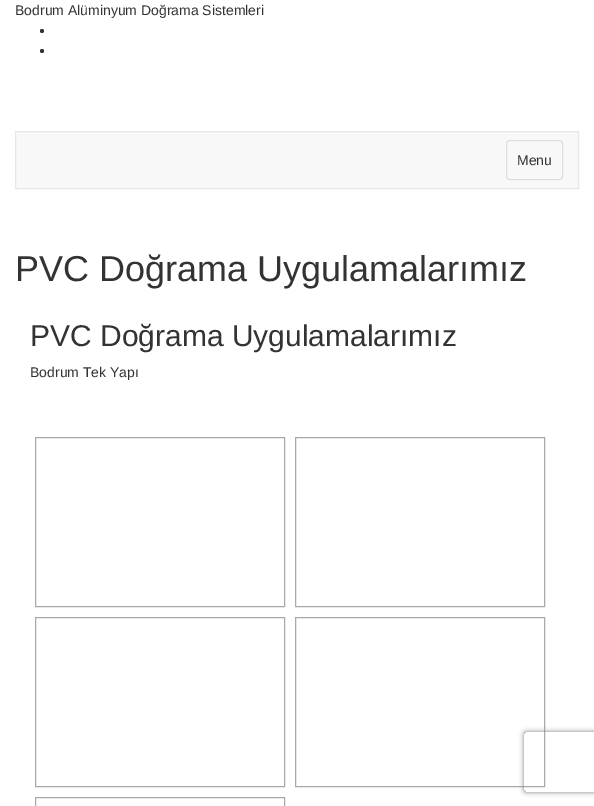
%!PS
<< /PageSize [594 806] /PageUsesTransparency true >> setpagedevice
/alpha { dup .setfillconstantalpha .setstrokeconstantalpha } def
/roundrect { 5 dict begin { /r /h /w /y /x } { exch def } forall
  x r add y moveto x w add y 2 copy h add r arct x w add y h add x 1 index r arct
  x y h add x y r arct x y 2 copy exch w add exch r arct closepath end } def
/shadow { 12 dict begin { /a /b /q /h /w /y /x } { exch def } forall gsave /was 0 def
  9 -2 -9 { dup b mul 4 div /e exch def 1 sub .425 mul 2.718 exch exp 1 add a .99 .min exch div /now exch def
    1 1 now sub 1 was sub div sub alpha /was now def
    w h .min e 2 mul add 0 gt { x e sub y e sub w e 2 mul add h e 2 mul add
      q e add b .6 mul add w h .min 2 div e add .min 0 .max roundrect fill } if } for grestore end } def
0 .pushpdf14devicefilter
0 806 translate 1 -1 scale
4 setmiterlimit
1 setgray
0 0 594 806 rectfill
/LiberationSans-Regular [14 0 0 -14 0 0] selectfont
0.2 setgray
15 15 moveto (Bodrum Alüminyum Doğrama Sistemleri) show
newpath 42 31 2 0 360 arc closepath fill
newpath 42 51 2 0 360 arc closepath fill
0.973 setgray
newpath 15.5 131.5 moveto 578.5 131.5 lineto 578.5 188.5 lineto 15.5 188.5 lineto closepath gsave fill grestore
0.906 setgray
stroke
0.867 setgray
506.5 140.5 56 39 3.5 roundrect stroke
0.2 setgray
517 165 moveto (Menu) show
/LiberationSans-Regular [36 0 0 -36 0 0] selectfont
15 281 moveto (PVC Doğrama Uygulamalarımız) show
/LiberationSans-Regular [30 0 0 -30 0 0] selectfont
30 346 moveto (PVC Doğrama Uygulamalarımız) show
/LiberationSans-Regular [14 0 0 -14 0 0] selectfont
30 377 moveto (Bodrum Tek Yapı) show
0.663 setgray
35.5 437.5 249 169 rectstroke
295.5 437.5 249 169 rectstroke
35.5 617.5 249 169 rectstroke
295.5 617.5 249 169 rectstroke
35.5 797.5 249 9 rectstroke
gsave
newpath 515 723 moveto 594 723 lineto 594 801 lineto 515 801 lineto closepath 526 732 moveto 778 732 lineto 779 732 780 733 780 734 curveto 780 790 lineto 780 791 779 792 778 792 curveto 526 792 lineto 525 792 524 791 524 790 curveto 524 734 lineto 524 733 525 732 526 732 curveto closepath eoclip newpath
0.502 setgray
524 732 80 60 2 2.5 1 shadow
grestore
.poppdf14devicefilter showpage
